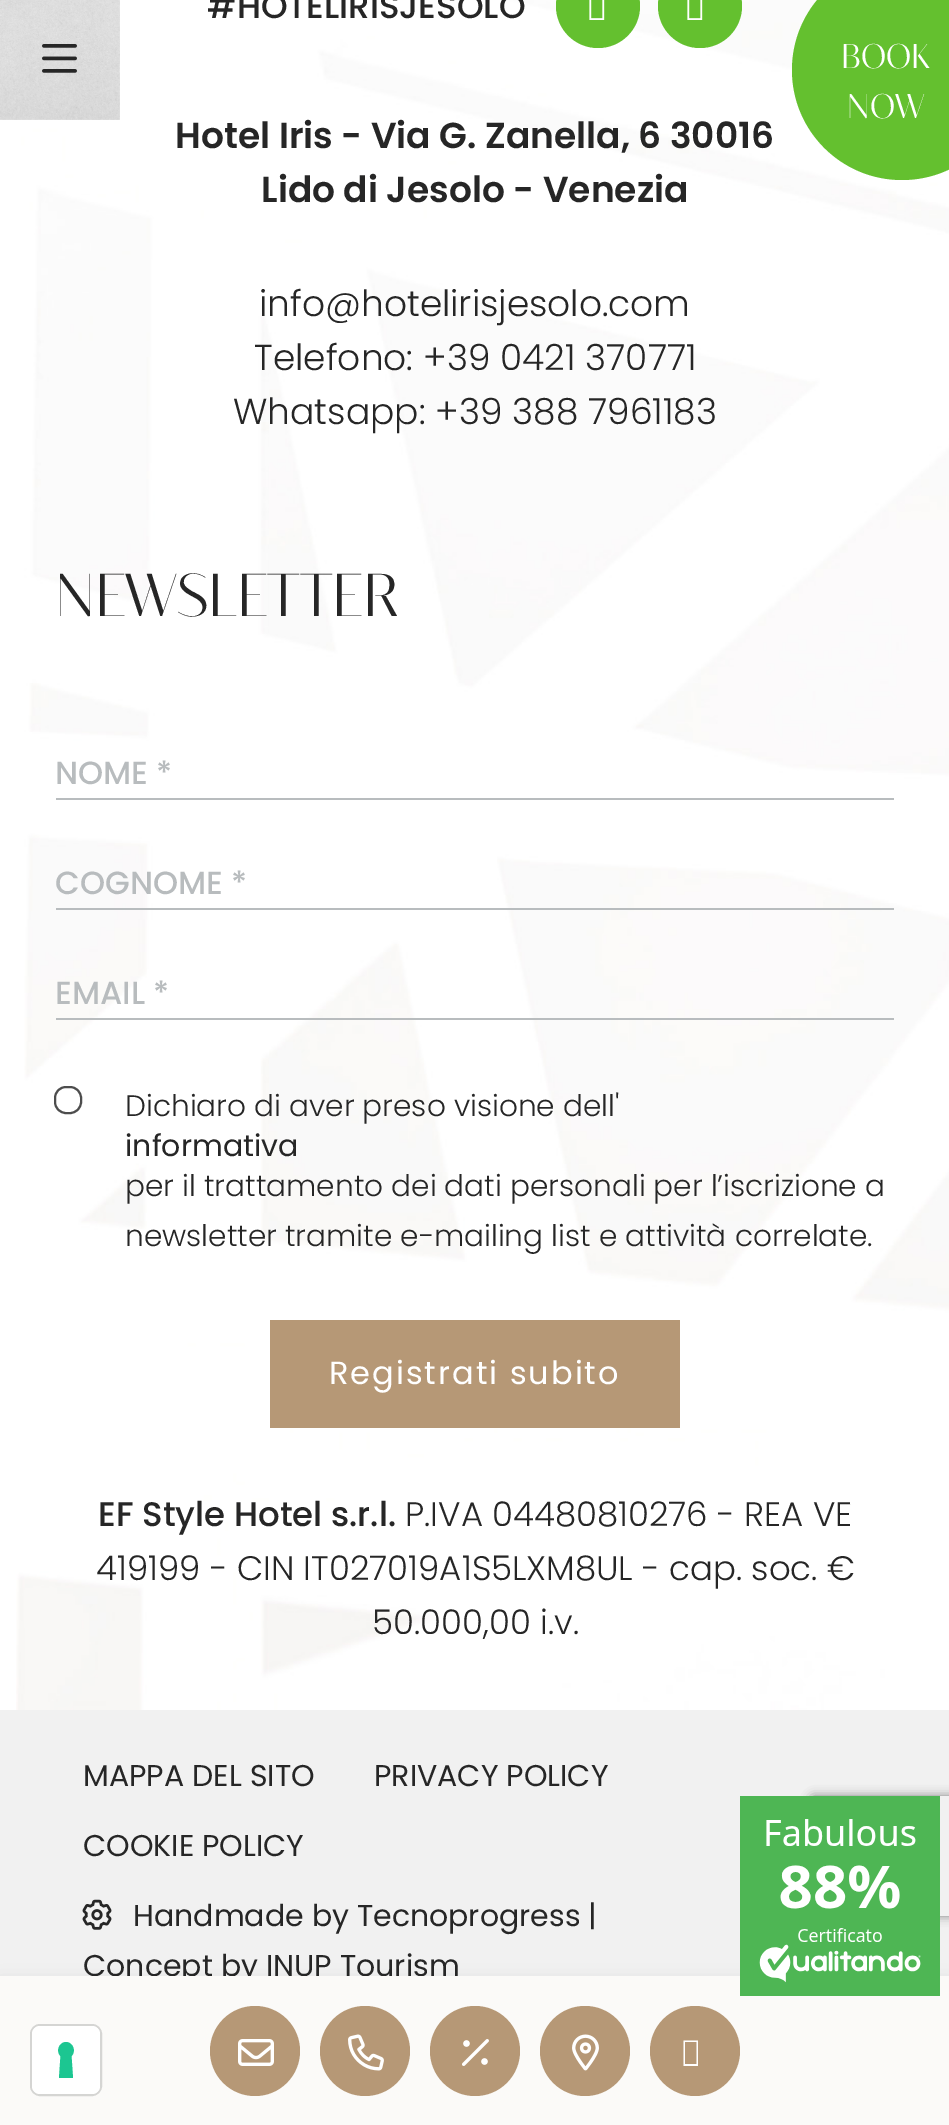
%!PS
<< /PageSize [949 2125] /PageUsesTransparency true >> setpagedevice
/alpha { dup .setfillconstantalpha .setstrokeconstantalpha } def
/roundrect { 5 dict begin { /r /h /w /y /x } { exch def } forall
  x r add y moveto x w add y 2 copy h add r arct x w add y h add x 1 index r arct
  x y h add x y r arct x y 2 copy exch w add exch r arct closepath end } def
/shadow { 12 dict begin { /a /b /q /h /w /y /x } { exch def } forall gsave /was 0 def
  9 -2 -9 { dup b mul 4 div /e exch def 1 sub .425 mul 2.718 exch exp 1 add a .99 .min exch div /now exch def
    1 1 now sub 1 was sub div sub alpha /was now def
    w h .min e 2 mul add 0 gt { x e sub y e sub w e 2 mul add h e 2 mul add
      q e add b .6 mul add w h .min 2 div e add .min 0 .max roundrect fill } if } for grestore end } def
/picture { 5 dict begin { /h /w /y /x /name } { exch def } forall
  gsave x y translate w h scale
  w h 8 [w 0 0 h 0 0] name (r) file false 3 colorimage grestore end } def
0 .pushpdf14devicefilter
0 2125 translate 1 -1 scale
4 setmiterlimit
1 setgray
0 0 949 2125 rectfill
(img1.rgb) 16 0 933 1710 picture
/Poppins-Medium [34 0 0 -34 0 0] selectfont
0.149 setgray
207 18 moveto (#HOTELIRISJESOLO) show
0.392 0.753 0.184 setrgbcolor
newpath 598 6 42 0 360 arc closepath fill
(img2.rgb) 589 0 16 20 picture
newpath 700 6 42 0 360 arc closepath fill
(img2.rgb) 687 0 16 20 picture
/Poppins-SemiBold [36 0 0 -36 0 0] selectfont
0.149 setgray
175 148 moveto (Hotel Iris - Via G. Zanella, 6 30016) show
261 202 moveto (Lido di Jesolo - Venezia) show
/Poppins-Light [36 0 0 -36 0 0] selectfont
259 316 moveto (info@hotelirisjesolo.com) show
254 370 moveto (Telefono: +39 0421 370771) show
233 424 moveto (Whatsapp: +39 388 7961183) show
/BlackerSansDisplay-Light [60 0 0 -60 0 0] selectfont
55 616 moveto (NEWSLETTER) show
0.722 0.737 0.745 setrgbcolor
56 798 838 2 rectfill
/Poppins-Medium [32 0 0 -32 0 0] selectfont
55 784 moveto (NOME *) show
56 908 838 2 rectfill
55 894 moveto (COGNOME *) show
56 1018 838 2 rectfill
55 1004 moveto (EMAIL *) show
0.302 setgray
2 setlinewidth
55 1087 26 26 11 roundrect stroke
/Poppins-Light [29.6 0 0 -29.6 0 0] selectfont
0.149 setgray
125 1116 moveto (Dichiaro di aver preso visione dell') show
/Poppins-Regular [30 0 0 -30 0 0] selectfont
125 1156 moveto (informativa) show
/Poppins-Light [29.6 0 0 -29.6 0 0] selectfont
125 1196 moveto (per il trattamento dei dati personali per l’iscrizione a) show
125 1246 moveto (newsletter tramite e-mailing list e attività correlate.) show
0.714 0.596 0.463 setrgbcolor
270 1320 410 108 rectfill
/Poppins-Regular [32 0 0 -32 0 0] selectfont
1 setgray
329 1384 moveto 2 0 (Registrati subito) ashow
/Poppins-Medium [34 0 0 -34 0 0] selectfont
0.149 setgray
98 1526 moveto (EF Style Hotel s.r.l.) show
/Poppins-Light [34 0 0 -34 0 0] selectfont
405 1526 moveto (P.IVA 04480810276 - REA VE) show
96 1580 moveto (419199 - CIN IT027019A1S5LXM8UL - cap. soc. €) show
372 1634 moveto (50.000,00 i.v.) show
0.945 setgray
0 1710 949 266 rectfill
/Poppins-Regular [30 0 0 -30 0 0] selectfont
0.149 setgray
83 1786 moveto (MAPPA DEL SITO) show
374 1786 moveto (PRIVACY POLICY) show
83 1856 moveto (COOKIE POLICY) show
(img3.rgb) 82 1899 30 31 picture
133 1926 moveto (Handmade by Tecnoprogress |) show
83 1976 moveto (Concept by INUP Tourism) show
(img4.rgb) 0 0 120 120 picture
(img5.rgb) 42 44 35 29 picture
0.392 0.753 0.184 setrgbcolor
newpath 902 70 110 0 360 arc closepath fill
/BlackerSansDisplay-Light [34 0 0 -34 0 0] selectfont
1 setgray
841 68 moveto (BOOK) show
847 118 moveto (NOW) show
0 setgray
0 1986 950 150 0 10 0.15 shadow
0.984 0.98 0.973 setrgbcolor
0 1976 949 149 rectfill
0.714 0.596 0.463 setrgbcolor
newpath 255 2051 45 0 360 arc closepath fill
(img6.rgb) 238 2039 36 27 picture
newpath 365 2051 45 0 360 arc closepath fill
(img7.rgb) 348 2034 36 37 picture
newpath 475 2051 45 0 360 arc closepath fill
(img8.rgb) 462 2039 27 27 picture
newpath 585 2051 45 0 360 arc closepath fill
(img9.rgb) 572 2034 27 37 picture
newpath 695 2051 45 0 360 arc closepath fill
1 setgray
newpath 683.5 2066 moveto 683.5 2040.5 lineto 698 2040.5 lineto 698 2066 lineto closepath 685 2064 moveto 696.5 2064 lineto 696.5 2042 lineto 685 2042 lineto closepath fill
gsave
newpath 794 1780 moveto 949 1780 lineto 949 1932 lineto 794 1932 lineto closepath 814 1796 moveto 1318 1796 lineto 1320 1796 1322 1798 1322 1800 curveto 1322 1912 lineto 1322 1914 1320 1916 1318 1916 curveto 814 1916 lineto 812 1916 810 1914 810 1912 curveto 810 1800 lineto 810 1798 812 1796 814 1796 curveto closepath eoclip newpath
0.502 setgray
810 1796 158 120 4 5 1 shadow
grestore
(img10.rgb) 740 1796 200 200 picture
0.835 0.835 0.827 setrgbcolor
31 2025 70 70 9 roundrect stroke
1 setgray
32 2026 68 68 8 roundrect fill
0.11 0.776 0.569 setrgbcolor
newpath 66 2042 moveto 73 2042 76.5 2051.5 71.5 2056 curveto 73 2078 lineto 59 2078 lineto 60.5 2056 lineto 55.5 2051.5 59 2042 66 2042 curveto closepath eofill
.poppdf14devicefilter showpage
